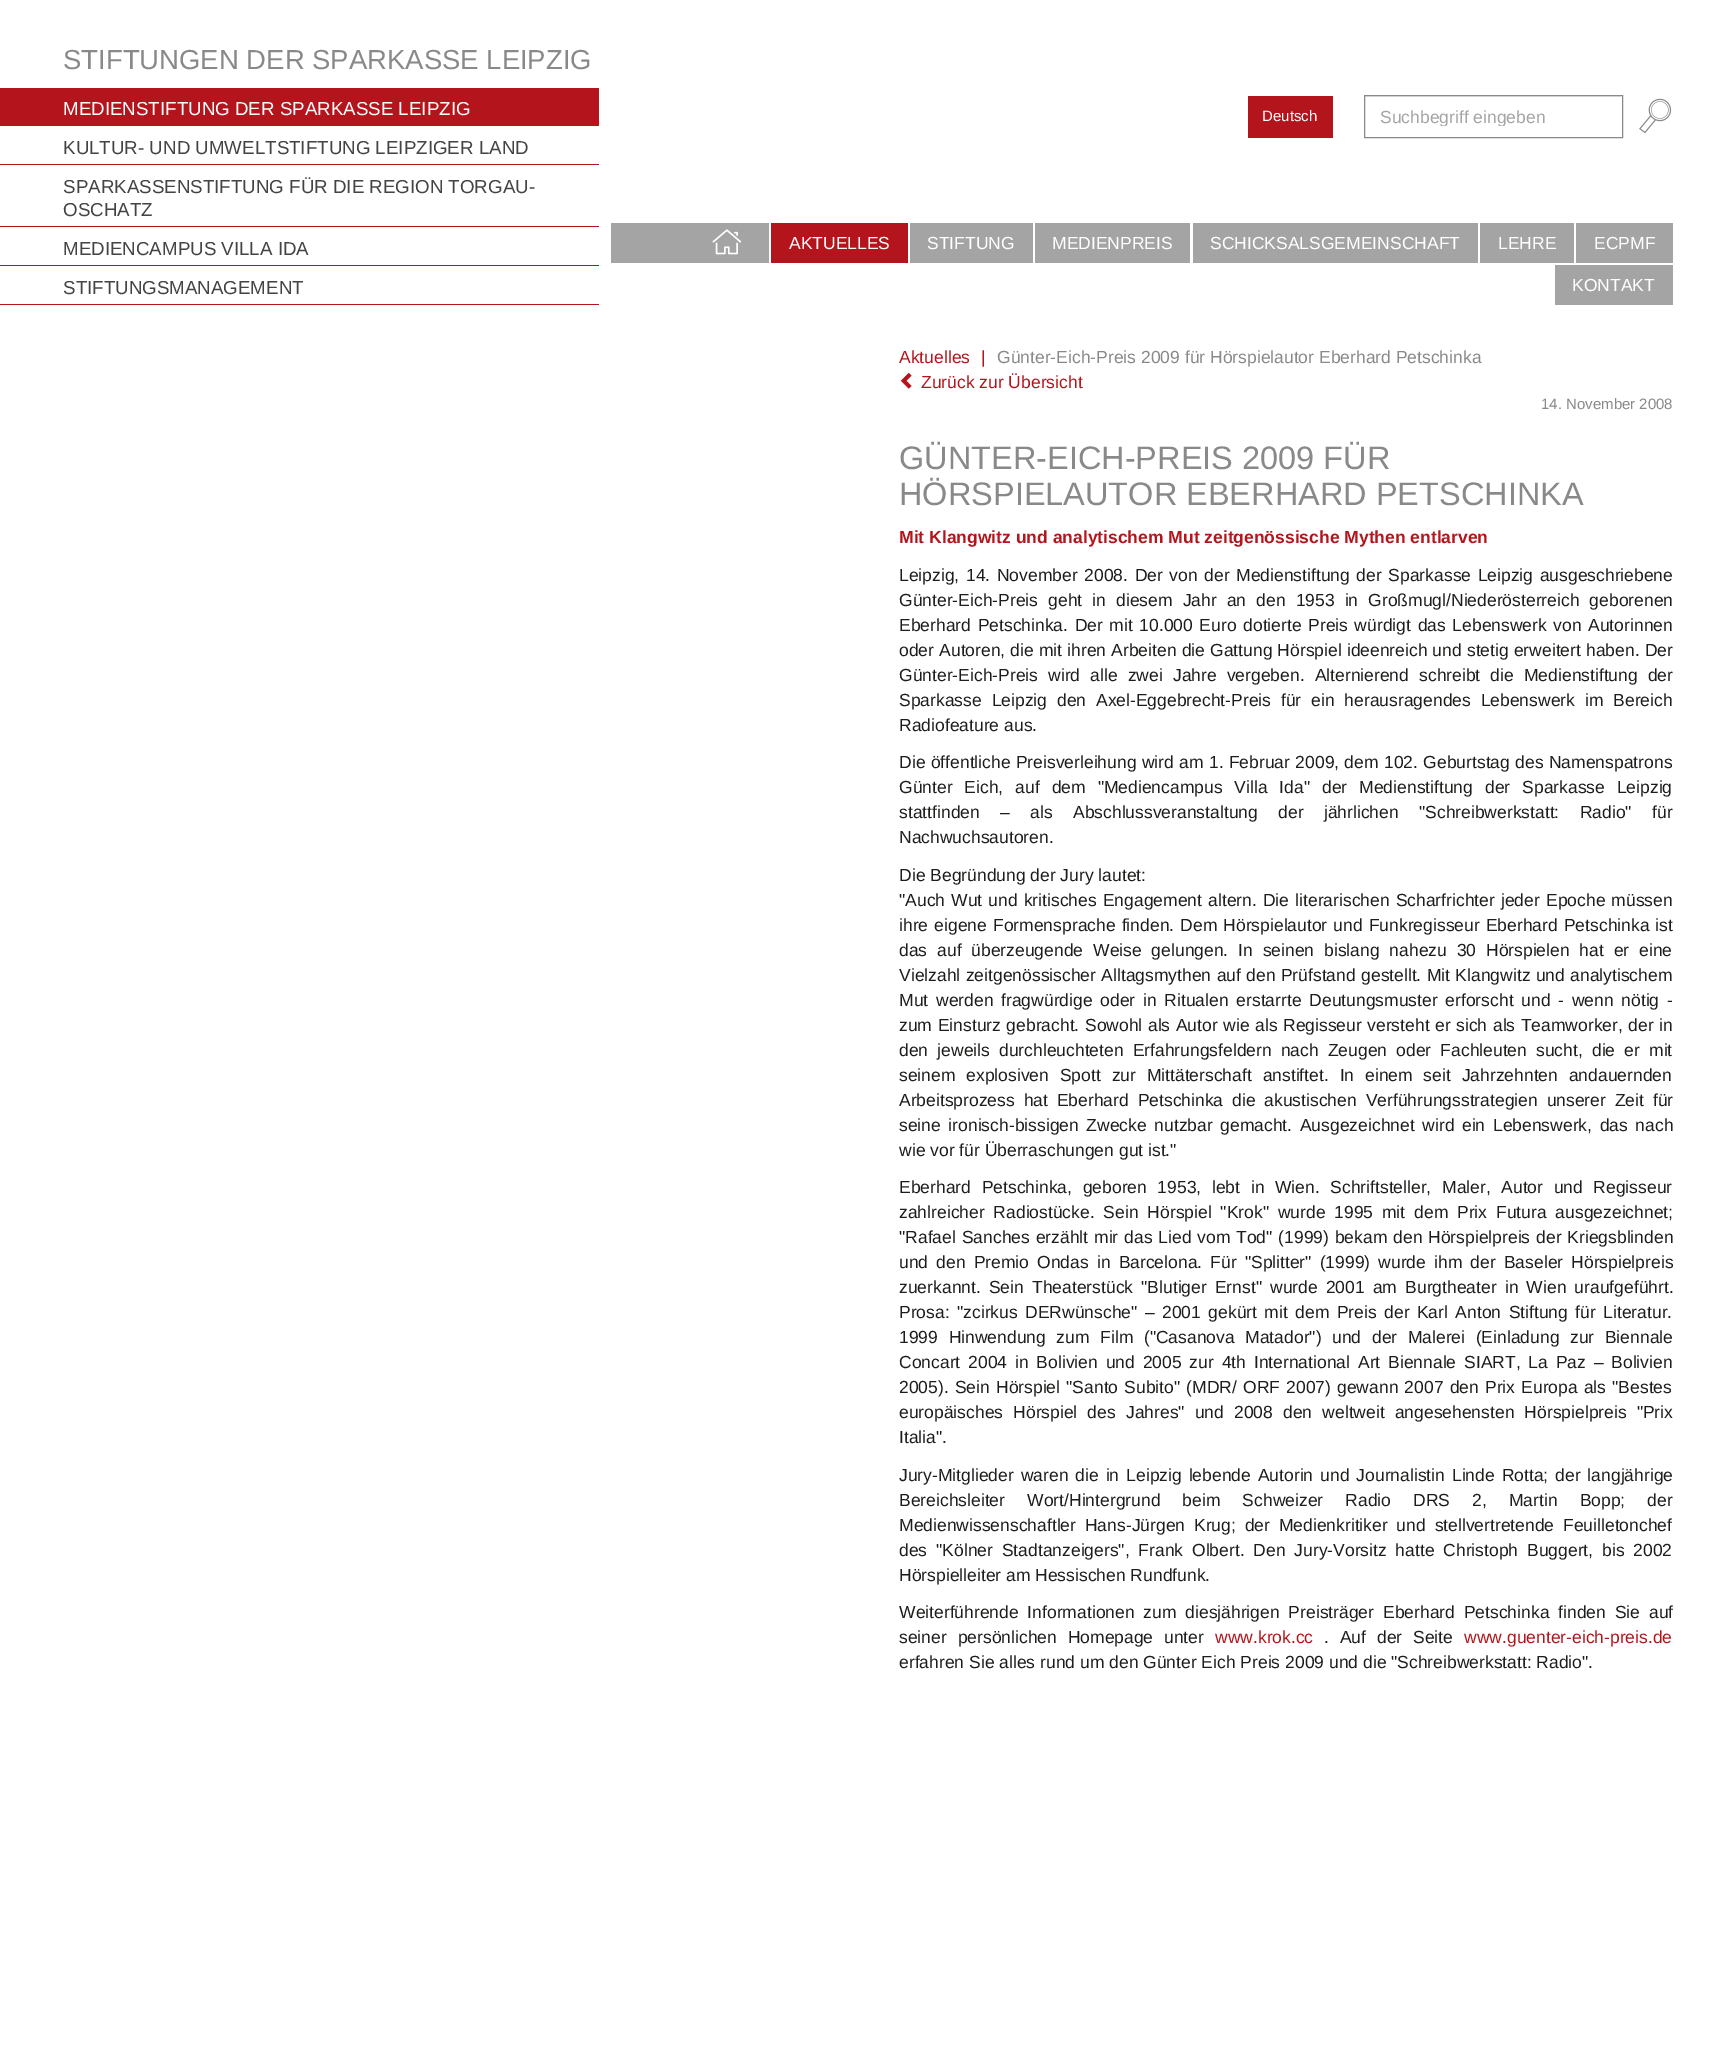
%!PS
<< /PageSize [1735 2056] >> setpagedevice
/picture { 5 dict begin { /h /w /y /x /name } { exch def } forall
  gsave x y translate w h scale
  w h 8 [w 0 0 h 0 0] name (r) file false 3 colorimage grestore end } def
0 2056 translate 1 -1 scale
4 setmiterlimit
1 setgray
0 0 1735 2056 rectfill
/LiberationSans-Regular [27.5 0 0 -27.5 0 0] selectfont
0.537 setgray
63 69 moveto (STIFTUNGEN DER SPARKASSE LEIPZIG) show
0.706 0.082 0.114 setrgbcolor
0 88 599 38 rectfill
/LiberationSans-Regular [18.75 0 0 -18.75 0 0] selectfont
1 setgray
63 115 moveto (MEDIENSTIFTUNG DER SPARKASSE LEIPZIG) show
0.706 0.082 0.114 setrgbcolor
0 164 599 1 rectfill
0.267 setgray
63 154 moveto (KULTUR- UND UMWELTSTIFTUNG LEIPZIGER LAND) show
0.706 0.082 0.114 setrgbcolor
0 226 599 1 rectfill
0.267 setgray
63 193 moveto (SPARKASSENSTIFTUNG FÜR DIE REGION TORGAU-) show
63 216 moveto (OSCHATZ) show
0.706 0.082 0.114 setrgbcolor
0 265 599 1 rectfill
0.267 setgray
63 255 moveto (MEDIENCAMPUS VILLA IDA) show
0.706 0.082 0.114 setrgbcolor
0 304 599 1 rectfill
0.267 setgray
63 294 moveto (STIFTUNGSMANAGEMENT) show
0.706 0.082 0.114 setrgbcolor
1248 96 85 42 rectfill
/LiberationSans-Regular [15 0 0 -15 0 0] selectfont
1 setgray
1262 121 moveto (Deutsch) show
0.925 setgray
1365 96 256 1 rectfill
0.537 setgray
1364.5 95.5 258 42 rectstroke
gsave
1380 106 226 20 rectclip
/LiberationSans-Regular [17.5 0 0 -17.5 0 0] selectfont
0.643 setgray
1380 123 moveto (Suchbegriff eingeben) show
grestore
(img1.rgb) 1639 98 33 36 picture
0.643 setgray
611 223 158 40 rectfill
(img2.rgb) 712 229 30 26 picture
0.706 0.082 0.114 setrgbcolor
771 223 137 40 rectfill
/LiberationSans-Regular [17.5 0 0 -17.5 0 0] selectfont
1 setgray
789 249 moveto (AKTUELLES) show
0.643 setgray
910 223 123 40 rectfill
1 setgray
927 249 moveto (STIFTUNG) show
0.643 setgray
1035 223 155 40 rectfill
1 setgray
1052 249 moveto (MEDIENPREIS) show
0.643 setgray
1193 223 285 40 rectfill
1 setgray
1210 249 moveto (SCHICKSALSGEMEINSCHAFT) show
0.643 setgray
1480 223 94 40 rectfill
1 setgray
1498 249 moveto (LEHRE) show
0.643 setgray
1576 223 97 40 rectfill
1 setgray
1594 249 moveto (ECPMF) show
0.643 setgray
1555 265 118 40 rectfill
1 setgray
1572 291 moveto (KONTAKT) show
0.706 0.082 0.114 setrgbcolor
899 363 moveto (Aktuelles) show
981 363 moveto (|) show
0.537 setgray
997 363 moveto (Günter-Eich-Preis 2009 für Hörspielautor Eberhard Petschinka) show
(img3.rgb) 900 372 12 17 picture
0.706 0.082 0.114 setrgbcolor
921 388 moveto (Zurück zur Übersicht) show
/LiberationSans-Regular [15 0 0 -15 0 0] selectfont
0.537 setgray
1541 409 moveto (14. November 2008) show
/LiberationSans-Regular [32.5 0 0 -32.5 0 0] selectfont
899 469 moveto (GÜNTER-EICH-PREIS 2009 FÜR) show
899 505 moveto (HÖRSPIELAUTOR EBERHARD PETSCHINKA) show
/LiberationSans-Bold [17.5 0 0 -17.5 0 0] selectfont
0.706 0.082 0.114 setrgbcolor
899 543 moveto (Mit Klangwitz und analytischem Mut zeitgenössische Mythen entlarven) show
/LiberationSans-Regular [17.5 0 0 -17.5 0 0] selectfont
0.114 0.114 0.106 setrgbcolor
899 581 moveto 1.75 0 32 (Leipzig, 14. November 2008. Der von der Medienstiftung der Sparkasse Leipzig ausgeschriebene) widthshow
899 606 moveto 5.25 0 32 (Günter-Eich-Preis geht in diesem Jahr an den 1953 in Großmugl/Niederösterreich geborenen) widthshow
899 631 moveto 1.75 0 32 (Eberhard Petschinka. Der mit 10.000 Euro dotierte Preis würdigt das Lebenswerk von Autorinnen) widthshow
899 656 moveto 0.25 0 32 (oder Autoren, die mit ihren Arbeiten die Gattung Hörspiel ideenreich und stetig erweitert haben. Der) widthshow
899 681 moveto 5.25 0 32 (Günter-Eich-Preis wird alle zwei Jahre vergeben. Alternierend schreibt die Medienstiftung der) widthshow
899 706 moveto 5 0 32 (Sparkasse Leipzig den Axel-Eggebrecht-Preis für ein herausragendes Lebenswerk im Bereich) widthshow
899 731 moveto (Radiofeature aus.) show
899 768 moveto 0.5 0 32 (Die öffentliche Preisverleihung wird am 1. Februar 2009, dem 102. Geburtstag des Namenspatrons) widthshow
899 793 moveto 7.1 0 32 (Günter Eich, auf dem "Mediencampus Villa Ida" der Medienstiftung der Sparkasse Leipzig) widthshow
899 818 moveto 15.5 0 32 (stattfinden – als Abschlussveranstaltung der jährlichen "Schreibwerkstatt: Radio" für) widthshow
899 843 moveto (Nachwuchsautoren.) show
899 881 moveto (Die Begründung der Jury lautet:) show
899 906 moveto 1.25 0 32 ("Auch Wut und kritisches Engagement altern. Die literarischen Scharfrichter jeder Epoche müssen) widthshow
899 931 moveto 1.25 0 32 (ihre eigene Formensprache finden. Dem Hörspielautor und Funkregisseur Eberhard Petschinka ist) widthshow
899 956 moveto 5 0 32 (das auf überzeugende Weise gelungen. In seinen bislang nahezu 30 Hörspielen hat er eine) widthshow
899 981 moveto 0.5 0 32 (Vielzahl zeitgenössischer Alltagsmythen auf den Prüfstand gestellt. Mit Klangwitz und analytischem) widthshow
899 1006 moveto 2.9 0 32 (Mut werden fragwürdige oder in Ritualen erstarrte Deutungsmuster erforscht und - wenn nötig -) widthshow
899 1031 moveto 0.7 0 32 (zum Einsturz gebracht. Sowohl als Autor wie als Regisseur versteht er sich als Teamworker, der in) widthshow
899 1056 moveto 4.25 0 32 (den jeweils durchleuchteten Erfahrungsfeldern nach Zeugen oder Fachleuten sucht, die er mit) widthshow
899 1081 moveto 6 0 32 (seinem explosiven Spott zur Mittäterschaft anstiftet. In einem seit Jahrzehnten andauernden) widthshow
899 1106 moveto 4 0 32 (Arbeitsprozess hat Eberhard Petschinka die akustischen Verführungsstrategien unserer Zeit für) widthshow
899 1131 moveto 2.75 0 32 (seine ironisch-bissigen Zwecke nutzbar gemacht. Ausgezeichnet wird ein Lebenswerk, das nach) widthshow
899 1156 moveto (wie vor für Überraschungen gut ist.") show
899 1193 moveto 5.75 0 32 (Eberhard Petschinka, geboren 1953, lebt in Wien. Schriftsteller, Maler, Autor und Regisseur) widthshow
899 1218 moveto 4 0 32 (zahlreicher Radiostücke. Sein Hörspiel "Krok" wurde 1995 mit dem Prix Futura ausgezeichnet;) widthshow
899 1243 moveto 1 0 32 ("Rafael Sanches erzählt mir das Lied vom Tod" \(1999\) bekam den Hörspielpreis der Kriegsblinden) widthshow
899 1268 moveto 3.25 0 32 (und den Premio Ondas in Barcelona. Für "Splitter" \(1999\) wurde ihm der Baseler Hörspielpreis) widthshow
899 1293 moveto 3.25 0 32 (zuerkannt. Sein Theaterstück "Blutiger Ernst" wurde 2001 am Burgtheater in Wien uraufgeführt.) widthshow
899 1318 moveto 2.6 0 32 (Prosa: "zcirkus DERwünsche" – 2001 gekürt mit dem Preis der Karl Anton Stiftung für Literatur.) widthshow
899 1343 moveto 5.75 0 32 (1999 Hinwendung zum Film \("Casanova Matador"\) und der Malerei \(Einladung zur Biennale) widthshow
899 1368 moveto 3 0 32 (Concart 2004 in Bolivien und 2005 zur 4th International Art Biennale SIART, La Paz – Bolivien) widthshow
899 1393 moveto 1.3 0 32 (2005\). Sein Hörspiel "Santo Subito" \(MDR/ ORF 2007\) gewann 2007 den Prix Europa als "Bestes) widthshow
899 1418 moveto 5.25 0 32 (europäisches Hörspiel des Jahres" und 2008 den weltweit angesehensten Hörspielpreis "Prix) widthshow
899 1443 moveto (Italia".) show
899 1481 moveto 2.1 0 32 (Jury-Mitglieder waren die in Leipzig lebende Autorin und Journalistin Linde Rotta; der langjährige) widthshow
899 1506 moveto 17.25 0 32 (Bereichsleiter Wort/Hintergrund beim Schweizer Radio DRS 2, Martin Bopp; der) widthshow
899 1531 moveto 4 0 32 (Medienwissenschaftler Hans-Jürgen Krug; der Medienkritiker und stellvertretende Feuilletonchef) widthshow
899 1556 moveto 4 0 32 (des "Kölner Stadtanzeigers", Frank Olbert. Den Jury-Vorsitz hatte Christoph Buggert, bis 2002) widthshow
899 1581 moveto (Hörspielleiter am Hessischen Rundfunk.) show
899 1618 moveto 4 0 32 (Weiterführende Informationen zum diesjährigen Preisträger Eberhard Petschinka finden Sie auf) widthshow
899 1643 moveto 6 0 32 (seiner persönlichen Homepage unter) widthshow
0.706 0.082 0.114 setrgbcolor
1215 1643 moveto (www.krok.cc) show
0.114 0.114 0.106 setrgbcolor
1324 1643 moveto 6 0 32 (. Auf der Seite) widthshow
0.706 0.082 0.114 setrgbcolor
1464 1643 moveto (www.guenter-eich-preis.de) show
0.114 0.114 0.106 setrgbcolor
899 1668 moveto (erfahren Sie alles rund um den Günter Eich Preis 2009 und die "Schreibwerkstatt: Radio".) show
showpage
